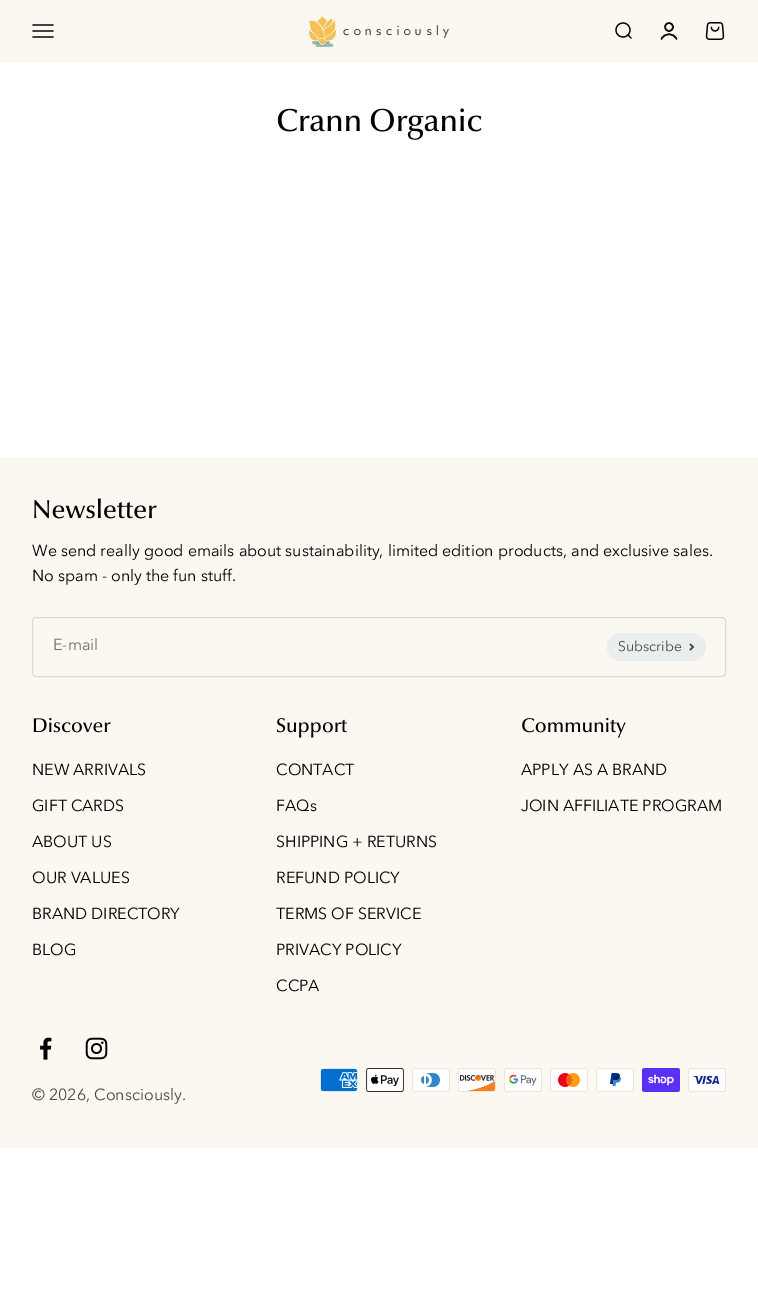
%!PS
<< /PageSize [758 1307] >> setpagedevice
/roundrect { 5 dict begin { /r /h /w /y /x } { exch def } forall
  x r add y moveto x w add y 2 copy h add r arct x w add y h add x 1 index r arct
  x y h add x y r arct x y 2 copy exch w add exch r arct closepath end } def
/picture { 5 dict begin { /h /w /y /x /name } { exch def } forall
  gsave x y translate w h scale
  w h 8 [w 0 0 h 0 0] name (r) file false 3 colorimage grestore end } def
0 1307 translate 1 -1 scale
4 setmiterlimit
1 setgray
0 0 758 1307 rectfill
0.984 0.973 0.945 setrgbcolor
0 0 758 63 rectfill
(img1.rgb) 32 24 22 14 picture
(img2.rgb) 309 16 140 31 picture
(img3.rgb) 615 22 17 17 picture
0 setgray
1.5 setlinewidth
newpath 669 27 4 0 360 arc closepath stroke
1 setlinecap
newpath 661.5 39 moveto 664.5 32.5 673.5 32.5 676.5 39 curveto stroke
(img4.rgb) 705 22 20 18 picture
(img5.rgb) 277 108 205 32 picture
0.984 0.973 0.945 setrgbcolor
0 457 758 691 rectfill
(img6.rgb) 34 498 123 21 picture
/AvenirNext-Regular [16 0 0 -16 0 0] selectfont
0 setgray
32 556 moveto (We send really good emails about sustainability, limited edition products, and exclusive sales.) show
32 581 moveto (No spam - only the fun stuff.) show
0.867 0.855 0.831 setrgbcolor
1 setlinewidth
0 setlinecap
32.5 617.5 693 59 3.5 roundrect stroke
0.439 setgray
53 650 moveto (E-mail) show
0.925 0.929 0.929 setrgbcolor
607 633 99 28 14 roundrect fill
/AvenirNext-Regular [14 0 0 -14 0 0] selectfont
0.251 0.325 0.29 setrgbcolor
618 651 moveto (Subscribe) show
1.5 setlinewidth
newpath 690 650 moveto 693 647 lineto 690 644 lineto stroke
(img7.rgb) 33 717 78 16 picture
/AvenirNext-Regular [16 0 0 -16 0 0] selectfont
0 setgray
32 775 moveto (NEW ARRIVALS) show
32 811 moveto (GIFT CARDS) show
32 847 moveto (ABOUT US) show
32 883 moveto (OUR VALUES) show
32 919 moveto (BRAND DIRECTORY) show
32 955 moveto (BLOG) show
(img8.rgb) 276 718 71 20 picture
276 775 moveto (CONTACT) show
276 811 moveto (FAQs) show
276 847 moveto (SHIPPING + RETURNS) show
276 883 moveto (REFUND POLICY) show
276 919 moveto (TERMS OF SERVICE) show
276 955 moveto (PRIVACY POLICY) show
276 991 moveto (CCPA) show
(img9.rgb) 522 717 104 21 picture
521 775 moveto (APPLY AS A BRAND) show
521 811 moveto (JOIN AFFILIATE PROGRAM) show
(img10.rgb) 40 1037 12 23 picture
(img11.rgb) 85 1037 23 23 picture
(img12.rgb) 320 1068 38 24 picture
(img13.rgb) 366 1068 38 24 picture
(img14.rgb) 412 1068 38 24 picture
(img15.rgb) 458 1068 38 24 picture
(img16.rgb) 504 1068 38 24 picture
(img17.rgb) 550 1068 38 24 picture
(img18.rgb) 596 1068 38 24 picture
(img19.rgb) 642 1068 38 24 picture
(img20.rgb) 688 1068 38 24 picture
0.294 0.29 0.282 setrgbcolor
32 1100 moveto (© 2026, Consciously.) show
showpage
